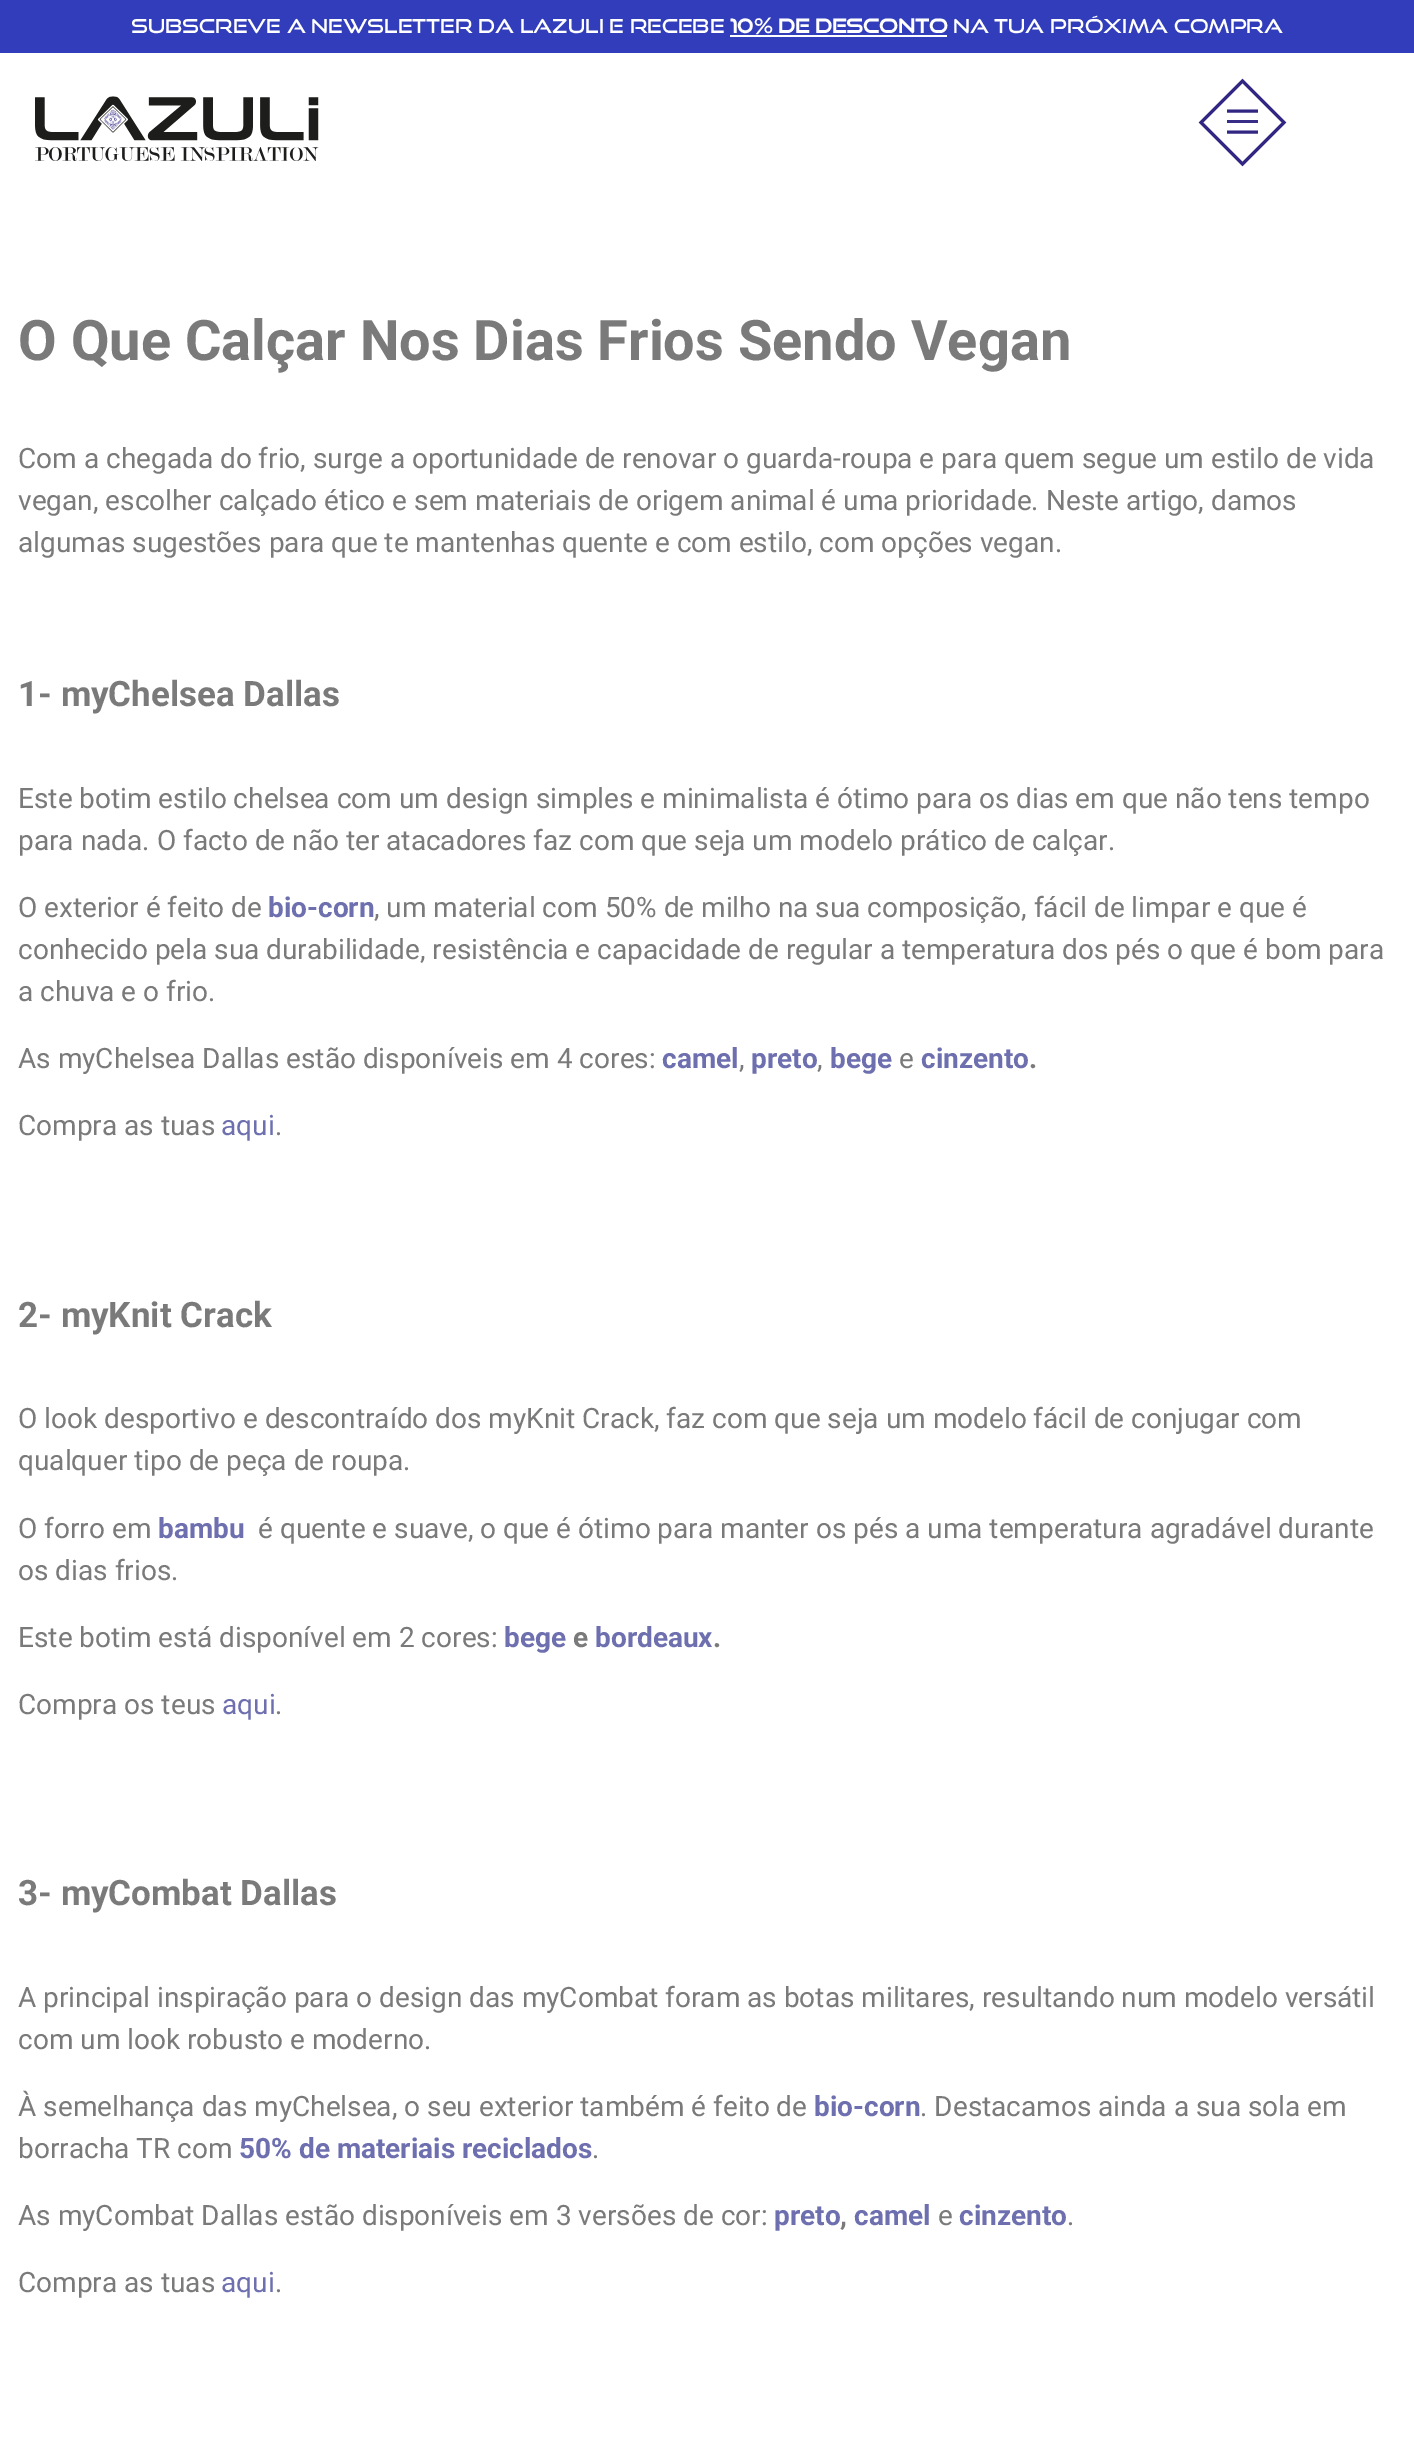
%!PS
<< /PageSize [1414 2438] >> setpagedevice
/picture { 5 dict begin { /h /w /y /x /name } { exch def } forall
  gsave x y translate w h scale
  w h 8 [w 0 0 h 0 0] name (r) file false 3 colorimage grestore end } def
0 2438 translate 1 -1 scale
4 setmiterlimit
1 setgray
0 0 1414 2438 rectfill
0.192 0.239 0.729 setrgbcolor
0 0 1414 53 rectfill
/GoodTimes-Regular [19.25 0 0 -19.25 0 0] selectfont
1 setgray
131 33 moveto (SUBSCREVE A NEWSLETTER DA LAZULI E RECEBE) show
/GoodTimes-Bold [19.25 0 0 -19.25 0 0] selectfont
730 33 moveto (10% DE DESCONTO) show
730 35 217 2 rectfill
/GoodTimes-Regular [19.25 0 0 -19.25 0 0] selectfont
953 33 moveto (NA TUA PRÓXIMA COMPRA) show
(img1.rgb) 35 96 284 65 picture
0.192 0.153 0.514 setrgbcolor
2.9 setlinewidth
newpath 1201 122.5 moveto 1242.5 81 lineto 1284 122.5 lineto 1242.5 164 lineto closepath stroke
newpath 1227 111 moveto 1258 111 lineto stroke
0.22 0.18 0.529 setrgbcolor
1227 120 31 3 rectfill
0.192 0.153 0.514 setrgbcolor
newpath 1227 132 moveto 1258 132 lineto stroke
/Roboto-Bold [56 0 0 -56 0 0] selectfont
0.478 setgray
18 360 moveto (O Que Calçar Nos Dias Frios Sendo Vegan) show
/Roboto-Regular [28 0 0 -28 0 0] selectfont
18 468 moveto (Com a chegada do frio, surge a oportunidade de renovar o guarda-roupa e para quem segue um estilo de vida) show
18 510 moveto (vegan, escolher calçado ético e sem materiais de origem animal é uma prioridade. Neste artigo, damos) show
18 552 moveto (algumas sugestões para que te mantenhas quente e com estilo, com opções vegan.) show
/Roboto-Bold [35 0 0 -35 0 0] selectfont
18 706 moveto (1- myChelsea Dallas) show
/Roboto-Regular [28 0 0 -28 0 0] selectfont
18 808 moveto (Este botim estilo chelsea com um design simples e minimalista é ótimo para os dias em que não tens tempo) show
18 850 moveto (para nada. O facto de não ter atacadores faz com que seja um modelo prático de calçar.) show
18 917 moveto (O exterior é feito de) show
/Roboto-Bold [28 0 0 -28 0 0] selectfont
0.427 0.435 0.686 setrgbcolor
268 917 moveto (bio-corn) show
/Roboto-Regular [28 0 0 -28 0 0] selectfont
0.478 setgray
374 917 moveto (, um material com 50% de milho na sua composição, fácil de limpar e que é) show
18 959 moveto (conhecido pela sua durabilidade, resistência e capacidade de regular a temperatura dos pés o que é bom para) show
18 1001 moveto (a chuva e o frio.) show
18 1068 moveto (As myChelsea Dallas estão disponíveis em 4 cores:) show
/Roboto-Bold [28 0 0 -28 0 0] selectfont
0.427 0.435 0.686 setrgbcolor
662 1068 moveto (camel) show
/Roboto-Regular [28 0 0 -28 0 0] selectfont
0.478 setgray
739 1068 moveto (,) show
/Roboto-Bold [28 0 0 -28 0 0] selectfont
0.427 0.435 0.686 setrgbcolor
751 1068 moveto (preto) show
/Roboto-Regular [28 0 0 -28 0 0] selectfont
0.478 setgray
817 1068 moveto (,) show
/Roboto-Bold [28 0 0 -28 0 0] selectfont
0.427 0.435 0.686 setrgbcolor
830 1068 moveto (bege) show
/Roboto-Regular [28 0 0 -28 0 0] selectfont
0.478 setgray
899 1068 moveto (e) show
/Roboto-Bold [28 0 0 -28 0 0] selectfont
0.427 0.435 0.686 setrgbcolor
921 1068 moveto (cinzento) show
0.478 setgray
1029 1068 moveto (.) show
/Roboto-Regular [28 0 0 -28 0 0] selectfont
18 1135 moveto (Compra as tuas) show
0.427 0.435 0.686 setrgbcolor
221 1135 moveto (aqui) show
0.478 setgray
275 1135 moveto (.) show
/Roboto-Bold [35 0 0 -35 0 0] selectfont
18 1327 moveto (2- myKnit Crack) show
/Roboto-Regular [28 0 0 -28 0 0] selectfont
18 1428 moveto (O look desportivo e descontraído dos myKnit Crack, faz com que seja um modelo fácil de conjugar com) show
18 1470 moveto (qualquer tipo de peça de roupa.) show
18 1538 moveto (O forro em) show
/Roboto-Bold [28 0 0 -28 0 0] selectfont
0.427 0.435 0.686 setrgbcolor
158 1538 moveto (bambu) show
/Roboto-Regular [28 0 0 -28 0 0] selectfont
0.478 setgray
258 1538 moveto (é quente e suave, o que é ótimo para manter os pés a uma temperatura agradável durante) show
18 1580 moveto (os dias frios.) show
18 1647 moveto (Este botim está disponível em 2 cores:) show
/Roboto-Bold [28 0 0 -28 0 0] selectfont
0.427 0.435 0.686 setrgbcolor
504 1647 moveto (bege) show
0.478 setgray
573 1647 moveto (e) show
0.427 0.435 0.686 setrgbcolor
595 1647 moveto (bordeaux) show
0.478 setgray
713 1647 moveto (.) show
/Roboto-Regular [28 0 0 -28 0 0] selectfont
18 1714 moveto (Compra os teus) show
0.427 0.435 0.686 setrgbcolor
222 1714 moveto (aqui) show
0.478 setgray
275 1714 moveto (.) show
/Roboto-Bold [35 0 0 -35 0 0] selectfont
18 1905 moveto (3- myCombat Dallas) show
/Roboto-Regular [28 0 0 -28 0 0] selectfont
18 2007 moveto (A principal inspiração para o design das myCombat foram as botas militares, resultando num modelo versátil) show
18 2049 moveto (com um look robusto e moderno.) show
18 2116 moveto (À semelhança das myChelsea, o seu exterior também é feito de) show
/Roboto-Bold [28 0 0 -28 0 0] selectfont
0.427 0.435 0.686 setrgbcolor
814 2116 moveto (bio-corn) show
/Roboto-Regular [28 0 0 -28 0 0] selectfont
0.478 setgray
920 2116 moveto (. Destacamos ainda a sua sola em) show
18 2158 moveto (borracha TR com) show
/Roboto-Bold [28 0 0 -28 0 0] selectfont
0.427 0.435 0.686 setrgbcolor
239 2158 moveto (50% de materiais reciclados) show
/Roboto-Regular [28 0 0 -28 0 0] selectfont
0.478 setgray
592 2158 moveto (.) show
18 2225 moveto (As myCombat Dallas estão disponíveis em 3 versões de cor:) show
/Roboto-Bold [28 0 0 -28 0 0] selectfont
0.427 0.435 0.686 setrgbcolor
774 2225 moveto (preto) show
0.478 setgray
840 2225 moveto (,) show
0.427 0.435 0.686 setrgbcolor
854 2225 moveto (camel) show
/Roboto-Regular [28 0 0 -28 0 0] selectfont
0.478 setgray
938 2225 moveto (e) show
/Roboto-Bold [28 0 0 -28 0 0] selectfont
0.427 0.435 0.686 setrgbcolor
959 2225 moveto (cinzento) show
/Roboto-Regular [28 0 0 -28 0 0] selectfont
0.478 setgray
1067 2225 moveto (.) show
18 2292 moveto (Compra as tuas) show
0.427 0.435 0.686 setrgbcolor
221 2292 moveto (aqui) show
0.478 setgray
275 2292 moveto (.) show
showpage
